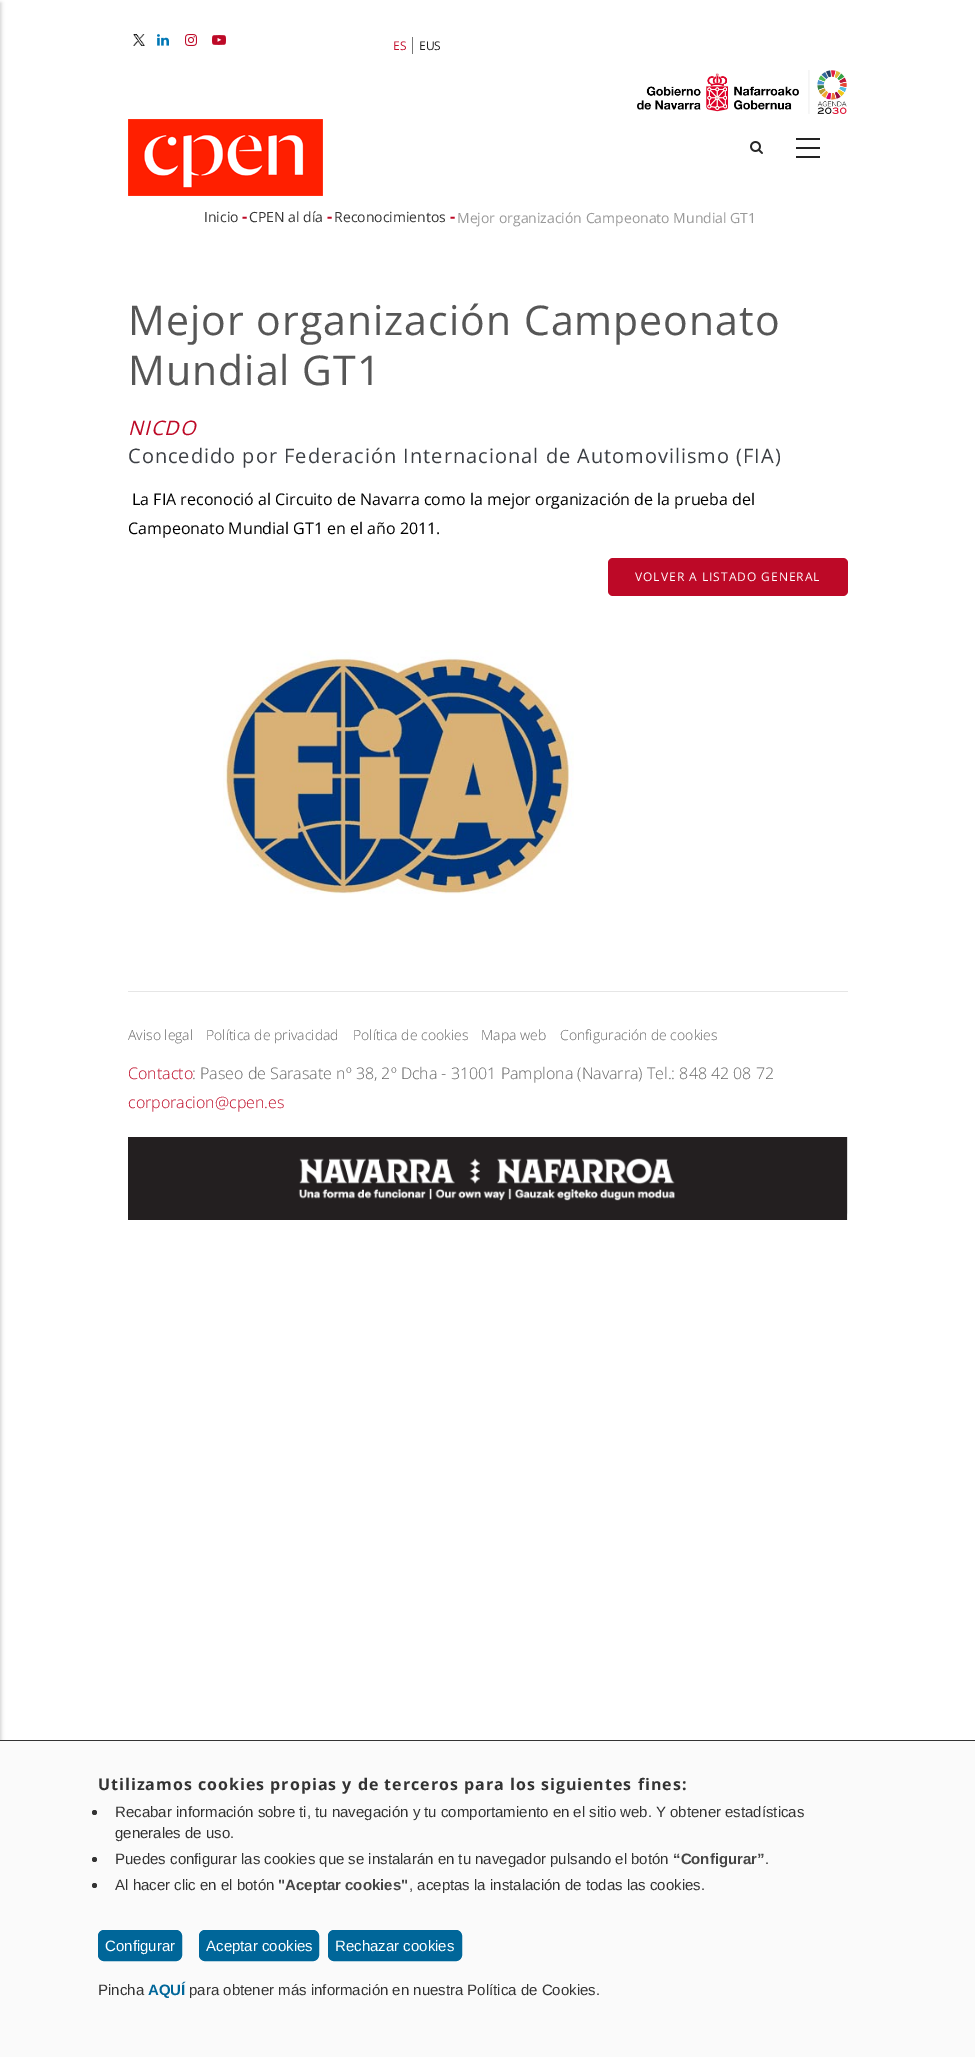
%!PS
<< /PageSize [975 2057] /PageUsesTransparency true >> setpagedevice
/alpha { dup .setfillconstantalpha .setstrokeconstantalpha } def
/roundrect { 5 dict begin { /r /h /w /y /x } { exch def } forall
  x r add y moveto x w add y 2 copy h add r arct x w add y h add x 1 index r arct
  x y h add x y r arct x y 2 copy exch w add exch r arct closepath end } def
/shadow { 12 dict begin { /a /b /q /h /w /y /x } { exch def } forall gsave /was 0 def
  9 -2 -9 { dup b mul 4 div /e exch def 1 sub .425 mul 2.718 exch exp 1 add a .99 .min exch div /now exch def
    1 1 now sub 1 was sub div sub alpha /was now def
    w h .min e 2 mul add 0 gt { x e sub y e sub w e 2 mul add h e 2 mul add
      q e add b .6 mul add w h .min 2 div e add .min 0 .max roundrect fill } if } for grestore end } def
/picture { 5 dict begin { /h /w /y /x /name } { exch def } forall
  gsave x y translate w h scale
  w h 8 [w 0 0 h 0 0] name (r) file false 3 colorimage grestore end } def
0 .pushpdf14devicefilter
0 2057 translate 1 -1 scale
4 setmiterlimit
1 setgray
0 0 975 2057 rectfill
(img1.rgb) 133 34 12 12 picture
(img2.rgb) 157 34 12 12 picture
(img3.rgb) 185 34 12 12 picture
(img4.rgb) 212 35 14 10 picture
/OpenSans-Regular [12 0 0 -12 0 0] selectfont
0.769 0.071 0.188 setrgbcolor
393 50 moveto (ES) show
0.133 setgray
419 50 moveto (EUS) show
0.467 setgray
412 37 1 17 rectfill
(img5.rgb) 637 70 210 44 picture
0 setgray
-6 3 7 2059 0 2 0.2 shadow
(img6.rgb) 750 141 13 13 picture
0.133 setgray
796 138 24 2 rectfill
796 147 24 2 rectfill
796 156 24 2 rectfill
(img7.rgb) 128 119 195 77 picture
/OpenSans-Regular [14 0 0 -14 0 0] selectfont
0.2 setgray
204 222 moveto (Inicio) show
/OpenSans-Bold [16 0 0 -16 0 0] selectfont
0.741 0.035 0.149 setrgbcolor
242 222 moveto (-) show
/OpenSans-Regular [14 0 0 -14 0 0] selectfont
0.2 setgray
249 222 moveto (CPEN al día) show
/OpenSans-Bold [16 0 0 -16 0 0] selectfont
0.741 0.035 0.149 setrgbcolor
327 222 moveto (-) show
/OpenSans-Regular [14 0 0 -14 0 0] selectfont
0.2 setgray
334 222 moveto (Reconocimientos) show
/OpenSans-Bold [16 0 0 -16 0 0] selectfont
0.741 0.035 0.149 setrgbcolor
450 222 moveto (-) show
/OpenSans-Regular [14 0 0 -14 0 0] selectfont
0.6 setgray
457 223 moveto (Mejor organización Campeonato Mundial GT1) show
/OpenSans-Regular [41 0 0 -41 0 0] selectfont
0.337 setgray
128 335 moveto 1 0 (Mejor organización Campeonato) ashow
128 385 moveto 1 0 (Mundial GT1) ashow
/OpenSans-Italic [20 0 0 -20 0 0] selectfont
0.741 0.035 0.149 setrgbcolor
128 435 moveto 1 0 (NICDO) ashow
/OpenSans-Regular [20 0 0 -20 0 0] selectfont
0.231 0.243 0.263 setrgbcolor
128 463 moveto 1 0 (Concedido por Federación Internacional de Automovilismo \(FIA\)) ashow
/OpenSans-Regular [16 0 0 -16 0 0] selectfont
0 setgray
132 505 moveto (La FIA reconoció al Circuito de Navarra como la mejor organización de la prueba del) show
128 534 moveto (Campeonato Mundial GT1 en el año 2011.) show
0.741 0.035 0.153 setrgbcolor
608 558 240 38 5 roundrect fill
/OpenSans-Regular [12 0 0 -12 0 0] selectfont
1 setgray
635 581 moveto 1 0 (VOLVER A LISTADO GENERAL) ashow
(img8.rgb) 223 650 351 244 picture
0.902 setgray
128 991 720 1 rectfill
/OpenSans-Light [14 0 0 -14 0 0] selectfont
0.396 setgray
128 1040 moveto (Aviso legal) show
206 1040 moveto (Política de privacidad) show
353 1040 moveto (Política de cookies) show
481 1040 moveto (Mapa web) show
560 1040 moveto (Configuración de cookies) show
/OpenSans-Light [16 0 0 -16 0 0] selectfont
0.741 0.035 0.149 setrgbcolor
128 1079 moveto (Contacto) show
0.396 setgray
192 1079 moveto (: Paseo de Sarasate nº 38, 2º Dcha - 31001 Pamplona \(Navarra\) Tel.: 848 42 08 72) show
0.741 0.035 0.149 setrgbcolor
128 1108 moveto (corporacion@cpen.es) show
(img9.rgb) 128 1137 720 83 picture
0.98 setgray
0 1741 975 316 rectfill
0.2 setgray
0 1740 975 1 rectfill
/OpenSans-Bold [16 0 0 -16 0 0] selectfont
98 1790 moveto 1 0 (Utilizamos cookies propias y de terceros para los siguientes fines:) ashow
newpath 94.5 1812.5 2.5 0 360 arc closepath fill
/LiberationSans-Regular [15 0 0 -15 0 0] selectfont
115 1817 moveto (Recabar información sobre ti, tu navegación y tu comportamiento en el sitio web. Y obtener estadísticas) show
115 1838 moveto (generales de uso.) show
newpath 94.5 1859.5 2.5 0 360 arc closepath fill
115 1864 moveto (Puedes configurar las cookies que se instalarán en tu navegador pulsando el botón) show
/LiberationSans-Bold [15 0 0 -15 0 0] selectfont
0.271 setgray
673 1864 moveto (“Configurar”) show
/LiberationSans-Regular [15 0 0 -15 0 0] selectfont
0.2 setgray
765 1864 moveto (.) show
newpath 94.5 1885.5 2.5 0 360 arc closepath fill
115 1890 moveto (Al hacer clic en el botón) show
/LiberationSans-Bold [15 0 0 -15 0 0] selectfont
0.271 setgray
278 1890 moveto ("Aceptar cookies") show
/LiberationSans-Regular [15 0 0 -15 0 0] selectfont
0.2 setgray
409 1890 moveto (, aceptas la instalación de todas las cookies.) show
0 0.4 0.6 setrgbcolor
98.5 1930.5 83 30 5.5 roundrect gsave fill grestore
stroke
1 setgray
105 1951 moveto (Configurar) show
0 0.4 0.6 setrgbcolor
199.5 1930.5 119 30 5.5 roundrect gsave fill grestore
stroke
1 setgray
206 1951 moveto (Aceptar cookies) show
0 0.4 0.6 setrgbcolor
328.5 1930.5 133 30 5.5 roundrect gsave fill grestore
stroke
1 setgray
335 1951 moveto (Rechazar cookies) show
0.2 setgray
98 1995 moveto (Pincha) show
/LiberationSans-Bold [15 0 0 -15 0 0] selectfont
0 0.4 0.6 setrgbcolor
148 1995 moveto (AQUÍ) show
/LiberationSans-Regular [15 0 0 -15 0 0] selectfont
0.2 setgray
189 1995 moveto (para obtener más información en nuestra Política de Cookies.) show
.poppdf14devicefilter showpage
